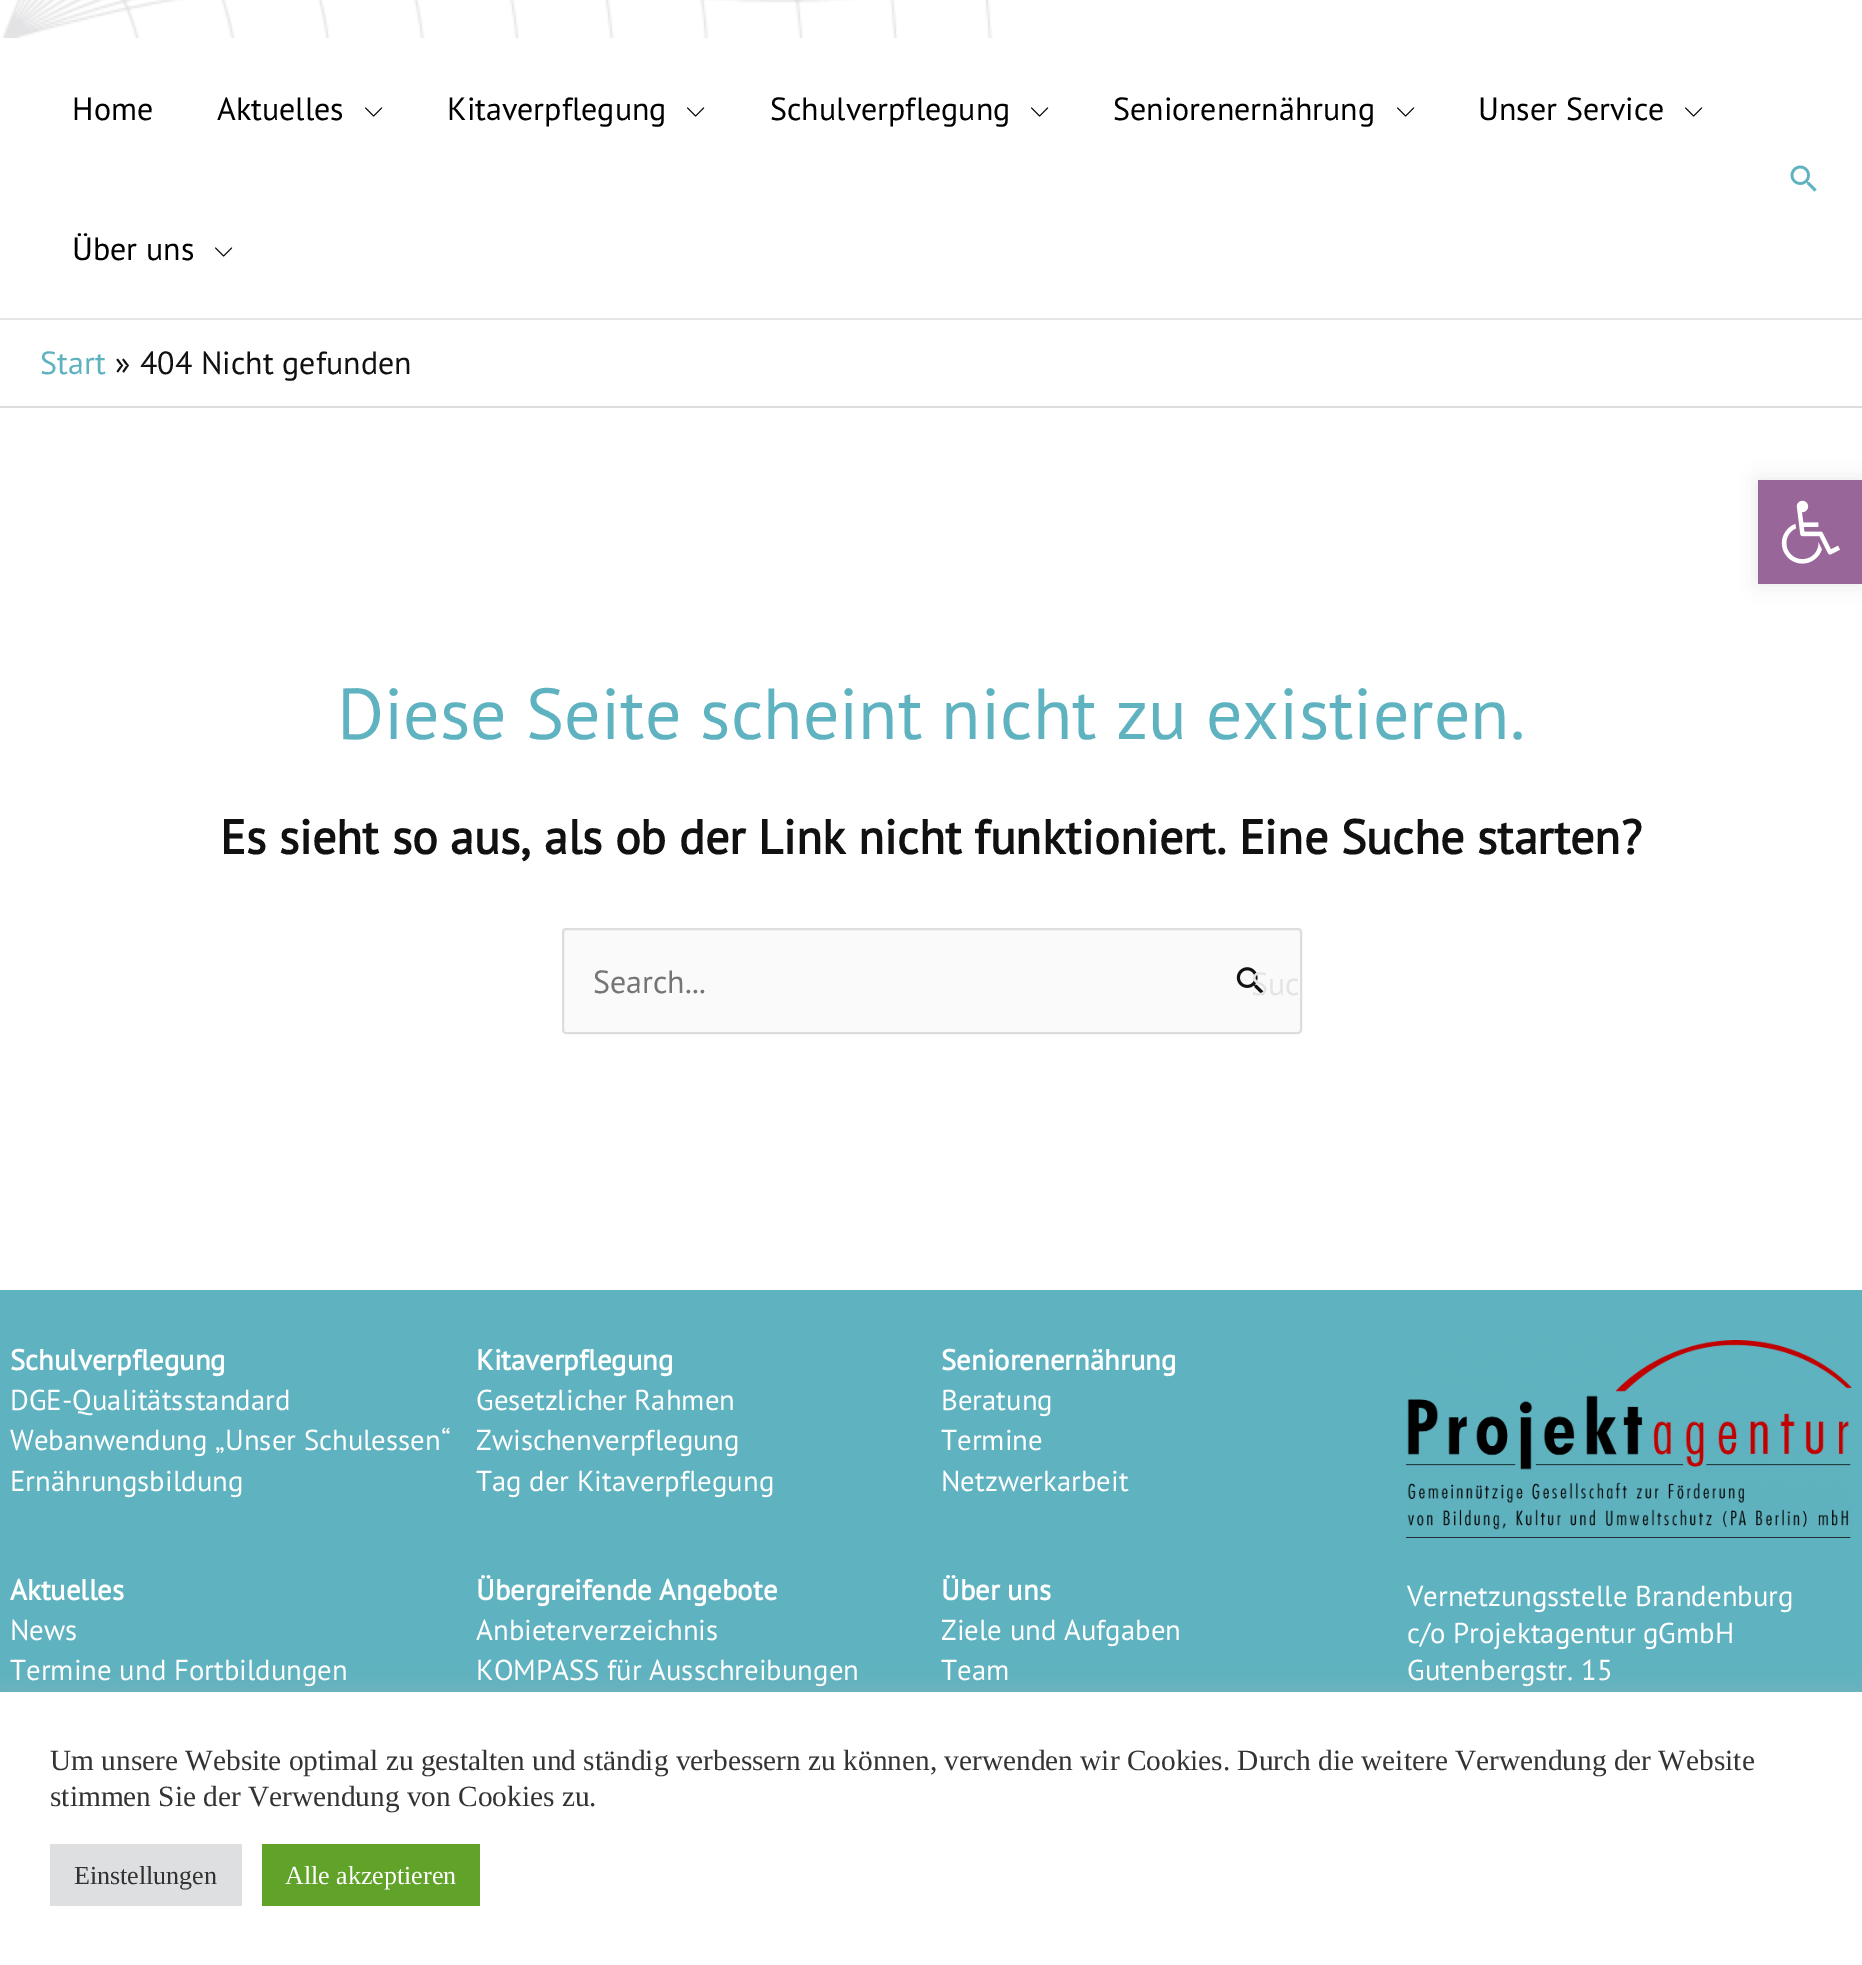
%!PS
<< /PageSize [1862 1965] /PageUsesTransparency true >> setpagedevice
/alpha { dup .setfillconstantalpha .setstrokeconstantalpha } def
/roundrect { 5 dict begin { /r /h /w /y /x } { exch def } forall
  x r add y moveto x w add y 2 copy h add r arct x w add y h add x 1 index r arct
  x y h add x y r arct x y 2 copy exch w add exch r arct closepath end } def
/shadow { 12 dict begin { /a /b /q /h /w /y /x } { exch def } forall gsave /was 0 def
  9 -2 -9 { dup b mul 4 div /e exch def 1 sub .425 mul 2.718 exch exp 1 add a .99 .min exch div /now exch def
    1 1 now sub 1 was sub div sub alpha /was now def
    w h .min e 2 mul add 0 gt { x e sub y e sub w e 2 mul add h e 2 mul add
      q e add b .6 mul add w h .min 2 div e add .min 0 .max roundrect fill } if } for grestore end } def
/picture { 5 dict begin { /h /w /y /x /name } { exch def } forall
  gsave x y translate w h scale
  w h 8 [w 0 0 h 0 0] name (r) file false 3 colorimage grestore end } def
0 .pushpdf14devicefilter
0 1965 translate 1 -1 scale
4 setmiterlimit
1 setgray
0 0 1862 1965 rectfill
(img1.rgb) 2 0 991 38 picture
0.898 setgray
0 318 1862 2 rectfill
/PTSans-Regular [32 0 0 -32 0 0] selectfont
0 setgray
72 120 moveto (Home) show
217 120 moveto (Aktuelles) show
(img2.rgb) 365 107 18 10 picture
447 120 moveto (Kitaverpflegung) show
(img2.rgb) 687 107 18 10 picture
770 120 moveto (Schulverpflegung) show
(img2.rgb) 1031 107 18 10 picture
1113 120 moveto (Seniorenernährung) show
(img2.rgb) 1397 107 18 10 picture
1478 120 moveto (Unser Service) show
(img2.rgb) 1685 107 18 10 picture
72 260 moveto (Über uns) show
(img2.rgb) 215 247 18 10 picture
(img3.rgb) 1790 165 27 27 picture
0.867 setgray
0 406 1862 2 rectfill
0.373 0.698 0.749 setrgbcolor
40 374 moveto (Start) show
0.067 setgray
115 374 moveto (») show
140 374 moveto (404 Nicht gefunden) show
/PTSans-Regular [72 0 0 -72 0 0] selectfont
0.373 0.698 0.749 setrgbcolor
337 739 moveto (Diese Seite scheint nicht zu existieren.) show
/PTSans-Bold [48 0 0 -48 0 0] selectfont
0.067 setgray
220 854 moveto (Es sieht so aus, als ob der Link nicht funktioniert. Eine Suche starten?) show
0.98 setgray
563 929 738 104 3 roundrect gsave fill grestore
0.867 setgray
2 setlinewidth
stroke
/PTSans-Regular [32 0 0 -32 0 0] selectfont
0.459 setgray
593 993 moveto (Search...) show
(img4.rgb) 1236 967 29 29 picture
0.894 setgray
1251 995 moveto (Suc) show
0 setgray
1758 480 104 104 0 10 0.1 shadow
0.6 0.4 0.6 setrgbcolor
1758 480 104 104 rectfill
(img5.rgb) 1781 500 59 64 picture
0.373 0.698 0.749 setrgbcolor
0 1290 1862 402 rectfill
/PTSans-Bold [28.75 0 0 -28.75 0 0] selectfont
1 setgray
10 1370 moveto (Schulverpflegung) show
/PTSans-Regular [28.75 0 0 -28.75 0 0] selectfont
10 1410 moveto (DGE-Qualitätsstandard) show
10 1450 moveto (Webanwendung „Unser Schulessen“) show
10 1491 moveto (Ernährungsbildung) show
/PTSans-Bold [28.75 0 0 -28.75 0 0] selectfont
10 1600 moveto (Aktuelles) show
/PTSans-Regular [28.75 0 0 -28.75 0 0] selectfont
10 1640 moveto (News) show
10 1680 moveto (Termine und Fortbildungen) show
/PTSans-Bold [28.75 0 0 -28.75 0 0] selectfont
476 1370 moveto (Kitaverpflegung) show
/PTSans-Regular [28.75 0 0 -28.75 0 0] selectfont
476 1410 moveto (Gesetzlicher Rahmen) show
476 1450 moveto (Zwischenverpflegung) show
476 1491 moveto (Tag der Kitaverpflegung) show
/PTSans-Bold [28.75 0 0 -28.75 0 0] selectfont
476 1600 moveto (Übergreifende Angebote) show
/PTSans-Regular [28.75 0 0 -28.75 0 0] selectfont
476 1640 moveto (Anbieterverzeichnis) show
476 1680 moveto (KOMPASS für Ausschreibungen) show
/PTSans-Bold [28.75 0 0 -28.75 0 0] selectfont
941 1370 moveto (Seniorenernährung) show
/PTSans-Regular [28.75 0 0 -28.75 0 0] selectfont
941 1410 moveto (Beratung) show
941 1450 moveto (Termine) show
941 1491 moveto (Netzwerkarbeit) show
/PTSans-Bold [28.75 0 0 -28.75 0 0] selectfont
941 1600 moveto (Über uns) show
/PTSans-Regular [28.75 0 0 -28.75 0 0] selectfont
941 1640 moveto (Ziele und Aufgaben) show
941 1680 moveto (Team) show
(img6.rgb) 1406 1340 446 198 picture
1407 1606 moveto (Vernetzungsstelle Brandenburg) show
1407 1643 moveto (c/o Projektagentur gGmbH) show
1407 1680 moveto (Gutenbergstr. 15) show
0.675 0.671 0.671 setrgbcolor
0 1690 1862 274 0 10 0.3 shadow
1 setgray
0 1692 1862 273 rectfill
/LiberationSerif-Regular [29.33 0 0 -29.33 0 0] selectfont
0.2 setgray
50 1770 moveto (Um unsere Website optimal zu gestalten und ständig verbessern zu können, verwenden wir Cookies. Durch die weitere Verwendung der Website) show
50 1806 moveto (stimmen Sie der Verwendung von Cookies zu.) show
0.871 0.875 0.878 setrgbcolor
50 1844 192 62 rectfill
/LiberationSerif-Regular [26 0 0 -26 0 0] selectfont
0.2 setgray
74 1884 moveto (Einstellungen) show
0.38 0.635 0.161 setrgbcolor
262 1844 218 62 rectfill
1 setgray
285 1884 moveto (Alle akzeptieren) show
.poppdf14devicefilter showpage
